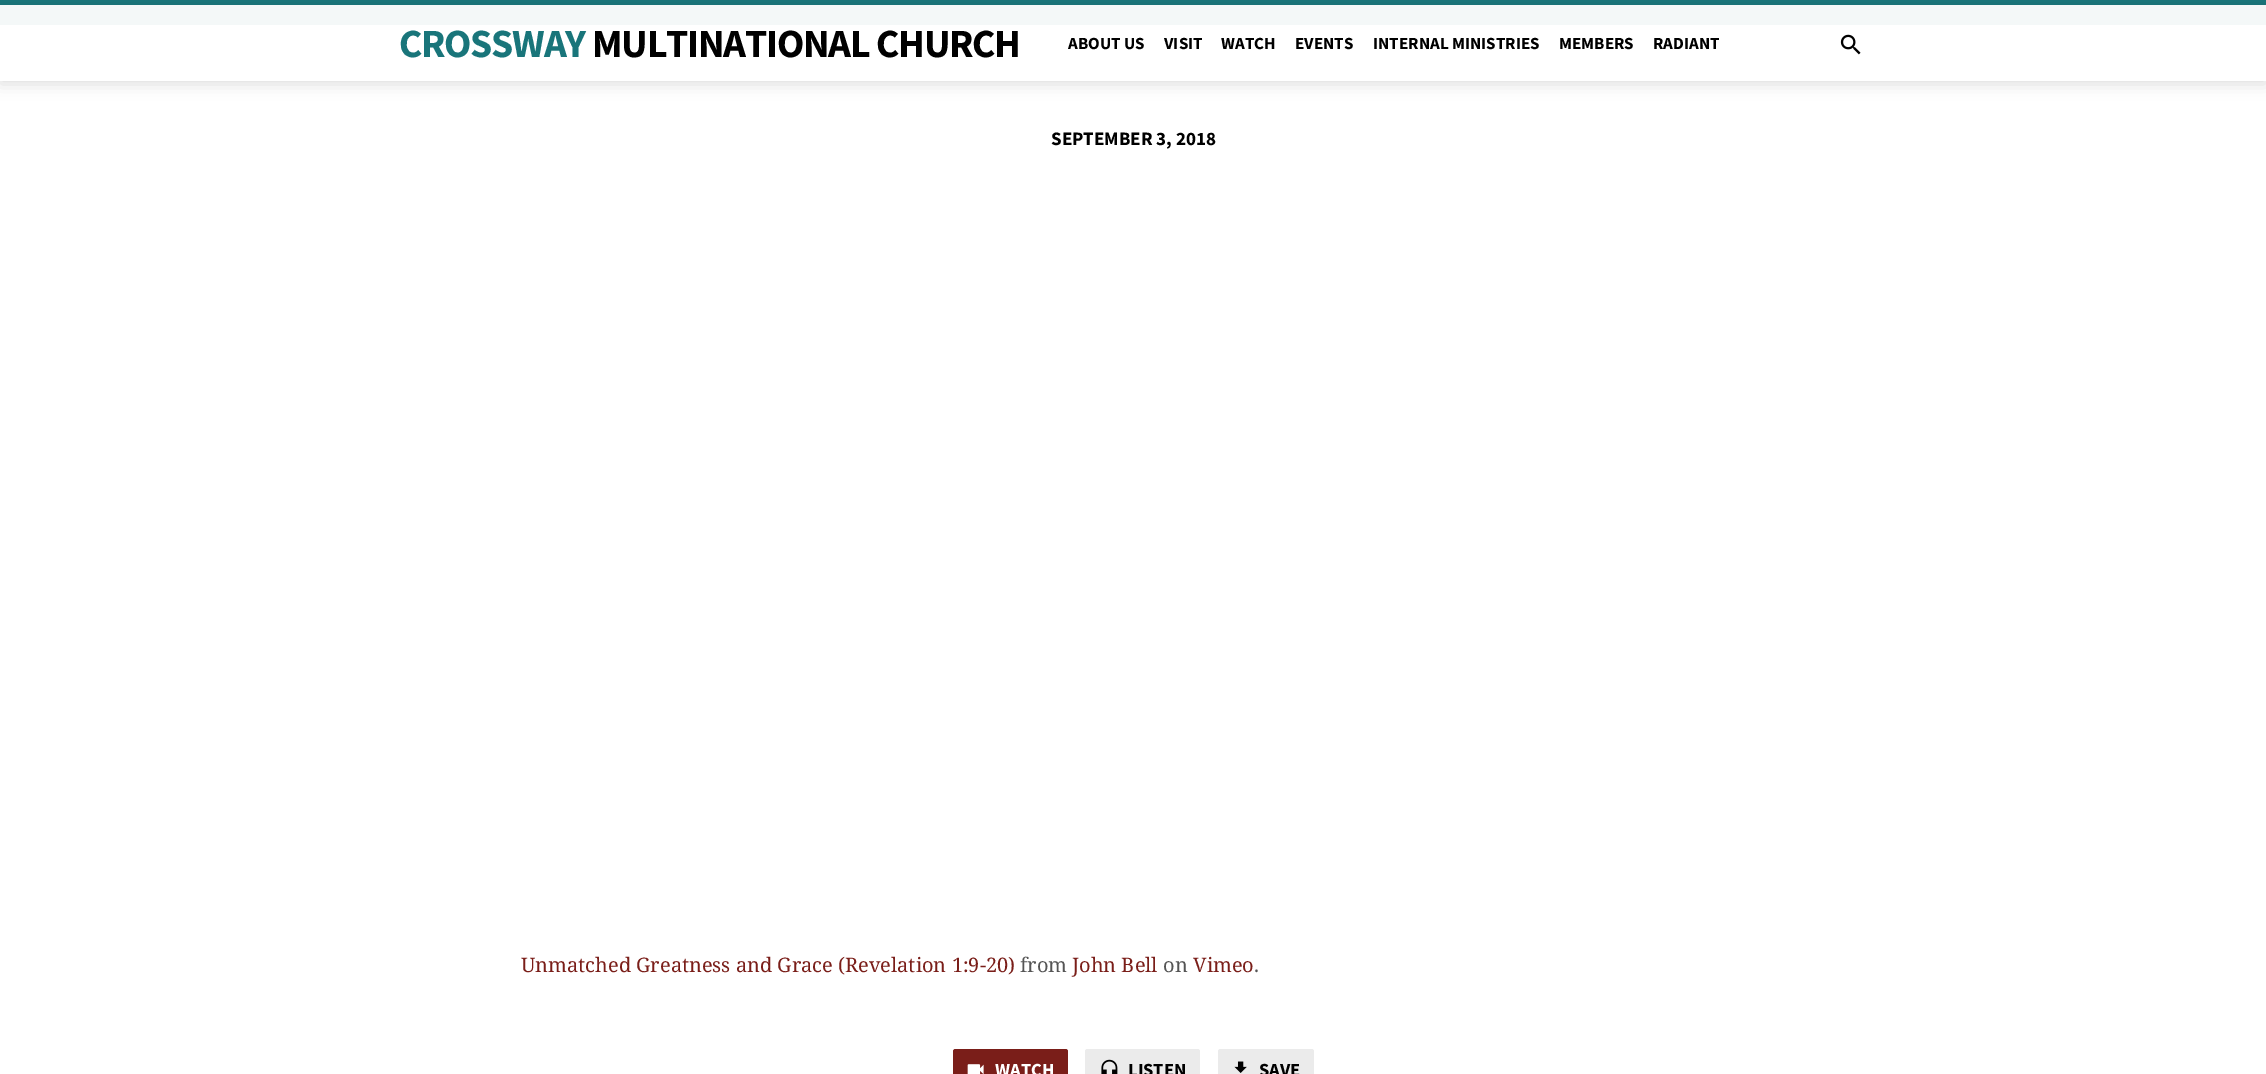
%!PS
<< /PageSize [2266 1074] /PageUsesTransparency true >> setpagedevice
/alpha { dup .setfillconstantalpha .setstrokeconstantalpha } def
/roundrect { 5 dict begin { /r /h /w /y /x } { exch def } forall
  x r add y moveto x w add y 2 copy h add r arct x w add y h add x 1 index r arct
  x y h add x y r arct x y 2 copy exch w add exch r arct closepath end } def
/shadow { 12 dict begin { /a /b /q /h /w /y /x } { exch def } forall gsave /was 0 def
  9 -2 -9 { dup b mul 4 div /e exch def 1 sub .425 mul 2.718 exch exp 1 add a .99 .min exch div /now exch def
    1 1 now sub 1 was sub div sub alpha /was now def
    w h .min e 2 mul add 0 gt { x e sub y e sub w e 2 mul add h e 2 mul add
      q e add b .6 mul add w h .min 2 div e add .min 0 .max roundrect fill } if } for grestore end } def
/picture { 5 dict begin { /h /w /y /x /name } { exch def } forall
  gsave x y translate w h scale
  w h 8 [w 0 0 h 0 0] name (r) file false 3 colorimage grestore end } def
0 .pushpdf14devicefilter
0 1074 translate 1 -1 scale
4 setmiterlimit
1 setgray
0 0 2266 1074 rectfill
0.957 0.973 0.973 setrgbcolor
0 5 2266 20 rectfill
0.098 0.459 0.478 setrgbcolor
0 0 2266 5 rectfill
(img1.rgb) 455 0 2 1 picture
gsave
newpath 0 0 moveto 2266 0 lineto 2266 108 lineto 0 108 lineto closepath 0 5 moveto 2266 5 lineto 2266 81 lineto 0 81 lineto closepath eoclip newpath
0 setgray
0 8 2266 76 0 7.5 0.14 shadow
grestore
/SourceSansPro-Bold [40 0 0 -40 0 0] selectfont
399 57 moveto -1.25 0 (CROSSWAY) ashow
0 setgray
592 57 moveto -1.25 0 (MULTINATIONAL CHURCH) ashow
/SourceSansPro-Bold [17 0 0 -17 0 0] selectfont
1068 49 moveto (ABOUT US) show
1164 49 moveto (VISIT) show
1221 49 moveto (WATCH) show
1295 49 moveto (EVENTS) show
1373 49 moveto (INTERNAL MINISTRIES) show
1559 49 moveto (MEMBERS) show
1653 49 moveto (RADIANT) show
(img2.rgb) 1840 34 21 21 picture
/SourceSansPro-Bold [19 0 0 -19 0 0] selectfont
1051 145 moveto (SEPTEMBER 3, 2018) show
/NotoSerif-Regular [20 0 0 -20 0 0] selectfont
0.478 0.118 0.098 setrgbcolor
521 972 moveto (Unmatched Greatness and Grace \(Revelation 1:9-20\)) show
0.333 setgray
1020 972 moveto (from) show
0.478 0.118 0.098 setrgbcolor
1072 972 moveto (John Bell) show
0.333 setgray
1163 972 moveto (on) show
0.478 0.118 0.098 setrgbcolor
1193 972 moveto (Vimeo) show
0.333 setgray
1254 972 moveto (.) show
0.478 0.118 0.098 setrgbcolor
953 1049 115 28 2.5 roundrect fill
(img3.rgb) 967 1064 17 10 picture
/SourceSansPro-Bold [18.5 0 0 -18.5 0 0] selectfont
1 setgray
995 1076 moveto (WATCH) show
0.922 setgray
1085 1049 115 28 2.5 roundrect fill
(img4.rgb) 1101 1059 17 15 picture
0 setgray
1128 1076 moveto (LISTEN) show
0.922 setgray
1218 1049 96 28 2.5 roundrect fill
(img5.rgb) 1234 1061 13 12 picture
0 setgray
1259 1076 moveto (SAVE) show
.poppdf14devicefilter showpage
